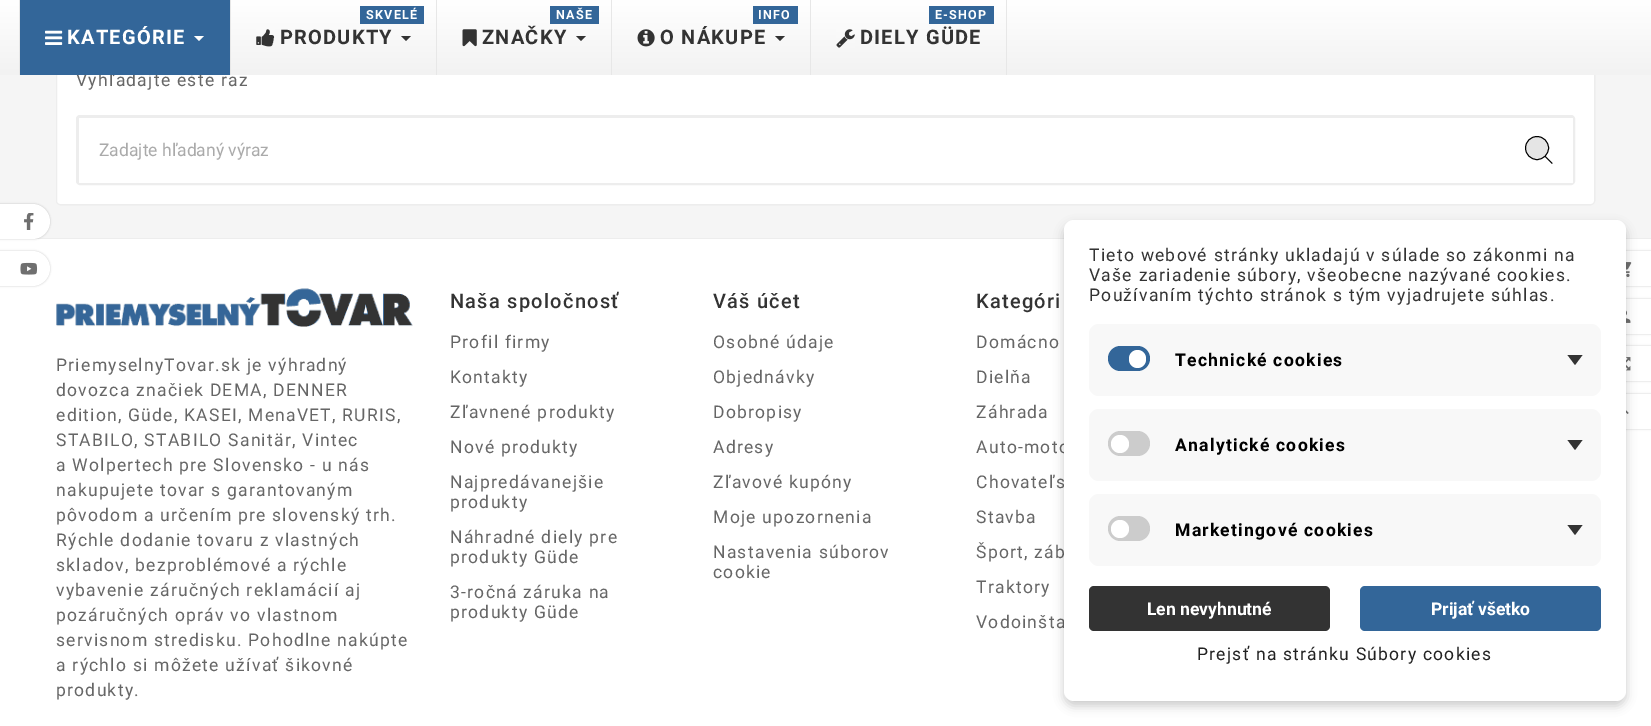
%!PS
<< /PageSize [1651 726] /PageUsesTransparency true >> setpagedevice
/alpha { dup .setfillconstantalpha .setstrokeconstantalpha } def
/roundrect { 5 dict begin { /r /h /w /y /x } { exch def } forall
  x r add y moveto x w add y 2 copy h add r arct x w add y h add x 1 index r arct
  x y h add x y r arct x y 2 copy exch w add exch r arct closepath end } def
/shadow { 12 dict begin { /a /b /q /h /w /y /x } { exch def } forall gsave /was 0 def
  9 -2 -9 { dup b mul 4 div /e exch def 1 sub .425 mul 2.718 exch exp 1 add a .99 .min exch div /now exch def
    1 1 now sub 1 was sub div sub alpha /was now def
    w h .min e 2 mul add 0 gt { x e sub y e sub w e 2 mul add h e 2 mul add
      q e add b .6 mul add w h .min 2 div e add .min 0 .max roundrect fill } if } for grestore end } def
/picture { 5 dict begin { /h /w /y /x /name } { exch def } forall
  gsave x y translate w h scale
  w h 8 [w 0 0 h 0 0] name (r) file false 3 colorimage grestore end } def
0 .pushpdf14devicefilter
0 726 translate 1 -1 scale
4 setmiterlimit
0.961 setgray
0 0 1651 726 rectfill
1 setgray
56 5 1539 200 4 roundrect fill
0.07 alpha
0 setgray
56.5 5.5 1538 199 3.5 roundrect stroke
/Roboto-Regular [17.5 0 0 -17.5 0 0] selectfont
1 alpha
0.4 setgray
76 86 moveto 1.25 0 (Vyhľadajte ešte raz) ashow
gsave newpath 0 0 moveto 1651 0 lineto 1651 75 lineto 0 75 lineto closepath clip newpath
<< /ShadingType 2 /ColorSpace /DeviceRGB /Coords [826 0 826 75] /Extend [true true] /Function << /FunctionType 2 /Domain [0 1] /C0 [1 1 1] /C1 [0.949 0.949 0.949] /N 1 >> >> shfill grestore
0.906 setgray
230 0 1 75 rectfill
19 0 1 75 rectfill
0.2 0.4 0.6 setrgbcolor
20 0 210 75 rectfill
(img1.rgb) 45 30 18 15 picture
/Roboto-Bold [20 0 0 -20 0 0] selectfont
1 setgray
67 44 moveto 1.25 0 (KATEGÓRIE) ashow
newpath 194 36 moveto 204 36 lineto 199 41 lineto closepath fill
0.906 setgray
436 0 1 75 rectfill
0.2 0.4 0.6 setrgbcolor
360 6 64 18 rectfill
/Roboto-Bold [12.5 0 0 -12.5 0 0] selectfont
1 setgray
366 19 moveto 1.25 0 (SKVELÉ) ashow
(img2.rgb) 256 29 19 18 picture
/Roboto-Bold [20 0 0 -20 0 0] selectfont
0.2 setgray
280 44 moveto 1.25 0 (PRODUKTY) ashow
newpath 401 36 moveto 411 36 lineto 406 41 lineto closepath fill
0.906 setgray
611 0 1 75 rectfill
0.2 0.4 0.6 setrgbcolor
550 6 49 18 rectfill
/Roboto-Bold [12.5 0 0 -12.5 0 0] selectfont
1 setgray
556 19 moveto 1.25 0 (NAŠE) ashow
(img3.rgb) 462 29 15 18 picture
/Roboto-Bold [20 0 0 -20 0 0] selectfont
0.2 setgray
482 44 moveto 1.25 0 (ZNAČKY) ashow
newpath 576 36 moveto 586 36 lineto 581 41 lineto closepath fill
0.906 setgray
810 0 1 75 rectfill
0.2 0.4 0.6 setrgbcolor
753 6 45 18 rectfill
/Roboto-Bold [12.5 0 0 -12.5 0 0] selectfont
1 setgray
758 19 moveto 1.25 0 (INFO) ashow
(img4.rgb) 637 29 18 18 picture
/Roboto-Bold [20 0 0 -20 0 0] selectfont
0.2 setgray
660 44 moveto 1.25 0 (O NÁKUPE) ashow
newpath 775 36 moveto 785 36 lineto 780 41 lineto closepath fill
0.906 setgray
1006 0 1 75 rectfill
0.2 0.4 0.6 setrgbcolor
929 6 65 18 rectfill
/Roboto-Bold [12.5 0 0 -12.5 0 0] selectfont
1 setgray
935 19 moveto 1.25 0 (E-SHOP) ashow
(img5.rgb) 836 29 19 19 picture
/Roboto-Bold [20 0 0 -20 0 0] selectfont
0.2 setgray
860 44 moveto 1.25 0 (DIELY GÜDE) ashow
0.929 setgray
3 setlinewidth
77.5 116.5 1496 67 2.5 roundrect stroke
1 setgray
newpath 80 118 moveto 1505 118 lineto 1505 183 lineto 80 183 lineto 79.5 183 79 182.5 79 182 curveto 79 119 lineto 79 118.5 79.5 118 80 118 curveto closepath fill
/Roboto-Regular [17.5 0 0 -17.5 0 0] selectfont
0.667 setgray
99 156 moveto (Zadajte hľadaný výraz) show
1 setgray
newpath 1505 118 moveto 1572 118 lineto 1572.5 118 1573 118.5 1573 119 curveto 1573 182 lineto 1573 182.5 1572.5 183 1572 183 curveto 1505 183 lineto closepath fill
0 setgray
newpath 1552 164 moveto 1544.5 156.5 lineto 1545.5 156 lineto 1552.5 163 lineto closepath fill
0.898 setgray
newpath 1537 148 11 0 360 arc closepath fill
0 setgray
0.9 setlinewidth
newpath 1537 148 11.5 0 360 arc closepath stroke
1 setgray
0 239 1651 487 rectfill
0.929 setgray
33 238 1618 1 rectfill
0 setgray
-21 204 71 35 17.5 1 0.2 shadow
1 setgray
newpath -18 204 moveto 32.5 204 lineto 42 204 50 212 50 221.5 curveto 50 231 42 239 32.5 239 curveto -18 239 lineto closepath fill
(img6.rgb) 24 213 10 17 picture
0 setgray
-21 251 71 35 17.5 1 0.2 shadow
1 setgray
newpath -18 251 moveto 32.5 251 lineto 42 251 50 259 50 268.5 curveto 50 278 42 286 32.5 286 curveto -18 286 lineto closepath fill
(img7.rgb) 20 262 18 13 picture
(img8.rgb) 56 288 357 39 picture
0.4 setgray
56 371 moveto 1.25 0 (PriemyselnyTovar.sk je výhradný) ashow
56 396 moveto 1.25 0 (dovozca značiek DEMA, DENNER) ashow
56 421 moveto 1.25 0 (edition, Güde, KASEI, MenaVET, RURIS,) ashow
56 446 moveto 1.25 0 (STABILO, STABILO Sanitär, Vintec) ashow
56 471 moveto 1.25 0 (a Wolpertech pre Slovensko - u nás) ashow
56 496 moveto 1.25 0 (nakupujete tovar s garantovaným) ashow
56 521 moveto 1.25 0 (pôvodom a určením pre slovenský trh.) ashow
56 546 moveto 1.25 0 (Rýchle dodanie tovaru z vlastných) ashow
56 571 moveto 1.25 0 (skladov, bezproblémové a rýchle) ashow
56 596 moveto 1.25 0 (vybavenie záručných reklamácií aj) ashow
56 621 moveto 1.25 0 (pozáručných opráv vo vlastnom) ashow
56 646 moveto 1.25 0 (servisnom stredisku. Pohodlne nakúpte) ashow
56 671 moveto 1.25 0 (a rýchlo si môžete užívať šikovné) ashow
56 696 moveto 1.25 0 (produkty.) ashow
/Roboto-Medium [20 0 0 -20 0 0] selectfont
0.2 setgray
450 308 moveto 1.25 0 (Naša spoločnosť) ashow
/Roboto-Regular [17.5 0 0 -17.5 0 0] selectfont
0.4 setgray
450 348 moveto 1.25 0 (Profil firmy) ashow
450 383 moveto 1.25 0 (Kontakty) ashow
450 418 moveto 1.25 0 (Zľavnené produkty) ashow
450 453 moveto 1.25 0 (Nové produkty) ashow
450 488 moveto 1.25 0 (Najpredávanejšie) ashow
450 508 moveto 1.25 0 (produkty) ashow
450 543 moveto 1.25 0 (Náhradné diely pre) ashow
450 563 moveto 1.25 0 (produkty Güde) ashow
450 598 moveto 1.25 0 (3-ročná záruka na) ashow
450 618 moveto 1.25 0 (produkty Güde) ashow
/Roboto-Medium [20 0 0 -20 0 0] selectfont
0.2 setgray
713 308 moveto 1.25 0 (Váš účet) ashow
/Roboto-Regular [17.5 0 0 -17.5 0 0] selectfont
0.4 setgray
713 348 moveto 1.25 0 (Osobné údaje) ashow
713 383 moveto 1.25 0 (Objednávky) ashow
713 418 moveto 1.25 0 (Dobropisy) ashow
713 453 moveto 1.25 0 (Adresy) ashow
713 488 moveto 1.25 0 (Zľavové kupóny) ashow
713 523 moveto 1.25 0 (Moje upozornenia) ashow
713 558 moveto 1.25 0 (Nastavenia súborov) ashow
713 578 moveto 1.25 0 (cookie) ashow
/Roboto-Medium [20 0 0 -20 0 0] selectfont
0.2 setgray
976 308 moveto 1.25 0 (Kategóri) ashow
/Roboto-Regular [17.5 0 0 -17.5 0 0] selectfont
0.4 setgray
976 348 moveto 1.25 0 (Domácno) ashow
976 383 moveto 1.25 0 (Dielňa) ashow
976 418 moveto 1.25 0 (Záhrada) ashow
976 453 moveto 1.25 0 (Auto-moto) ashow
976 488 moveto 1.25 0 (Chovateľs) ashow
976 523 moveto 1.25 0 (Stavba) ashow
976 558 moveto 1.25 0 (Šport, záb) ashow
976 593 moveto 1.25 0 (Traktory) ashow
976 628 moveto 1.25 0 (Vodoinšta) ashow
0 setgray
1601 251 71 35 17.5 1 0.2 shadow
1 setgray
1626 251 25 35 rectfill
(img9.rgb) 1626 262 6 15 picture
0 setgray
1601 299 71 35 17.5 1 0.2 shadow
1 setgray
1626 299 25 35 rectfill
(img10.rgb) 1626 310 5 13 picture
0 setgray
1601 346 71 35 17.5 1 0.2 shadow
1 setgray
1626 346 25 35 rectfill
(img11.rgb) 1626 357 5 14 picture
0 setgray
1601 394 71 35 17.5 1 0.2 shadow
1 setgray
1626 394 25 35 rectfill
(img12.rgb) 1626 410 3 4 picture
0 setgray
1064 225 562 481 10 5 0.2 shadow
1 setgray
1064 220 562 481 10 roundrect fill
0.2 setgray
1089 261 moveto 1.25 0 (Tieto webové stránky ukladajú v súlade so zákonmi na) ashow
1089 281 moveto 1.25 0 (Vaše zariadenie súbory, všeobecne nazývané cookies.) ashow
1089 301 moveto 1.25 0 (Používaním týchto stránok s tým vyjadrujete súhlas.) ashow
0.973 setgray
1089 324 512 72 10 roundrect fill
0.2 0.4 0.6 setrgbcolor
1108 346 42 25 12.5 roundrect fill
1 setgray
1129 350 17 18 8.5 roundrect fill
/Roboto-Bold [17.5 0 0 -17.5 0 0] selectfont
0 setgray
1175 366 moveto 1.25 0 (Technické cookies) ashow
0.2 setgray
newpath 1567.5 355 moveto 1582.5 355 lineto 1575 365 lineto closepath fill
0.973 setgray
1089 409 512 72 10 roundrect fill
0.8 setgray
1108 431 42 25 12.5 roundrect fill
1 setgray
newpath 1120 444 9 0 360 arc closepath fill
0 setgray
1175 451 moveto 1.25 0 (Analytické cookies) ashow
0.2 setgray
newpath 1567.5 440 moveto 1582.5 440 lineto 1575 450 lineto closepath fill
0.973 setgray
1089 494 512 72 10 roundrect fill
0.8 setgray
1108 516 42 25 12.5 roundrect fill
1 setgray
newpath 1120 529 9 0 360 arc closepath fill
0 setgray
1175 536 moveto 1.25 0 (Marketingové cookies) ashow
0.2 setgray
newpath 1567.5 525 moveto 1582.5 525 lineto 1575 535 lineto closepath fill
1089 586 241 45 5 roundrect fill
1 setgray
1147 615 moveto (Len nevyhnutné) show
0.2 0.4 0.6 setrgbcolor
1360 586 241 45 5 roundrect fill
1 setgray
1431 615 moveto (Prijať všetko) show
/Roboto-Regular [17.5 0 0 -17.5 0 0] selectfont
0.133 setgray
1197 660 moveto 1.25 0 (Prejsť na stránku Súbory cookies) ashow
.poppdf14devicefilter showpage
